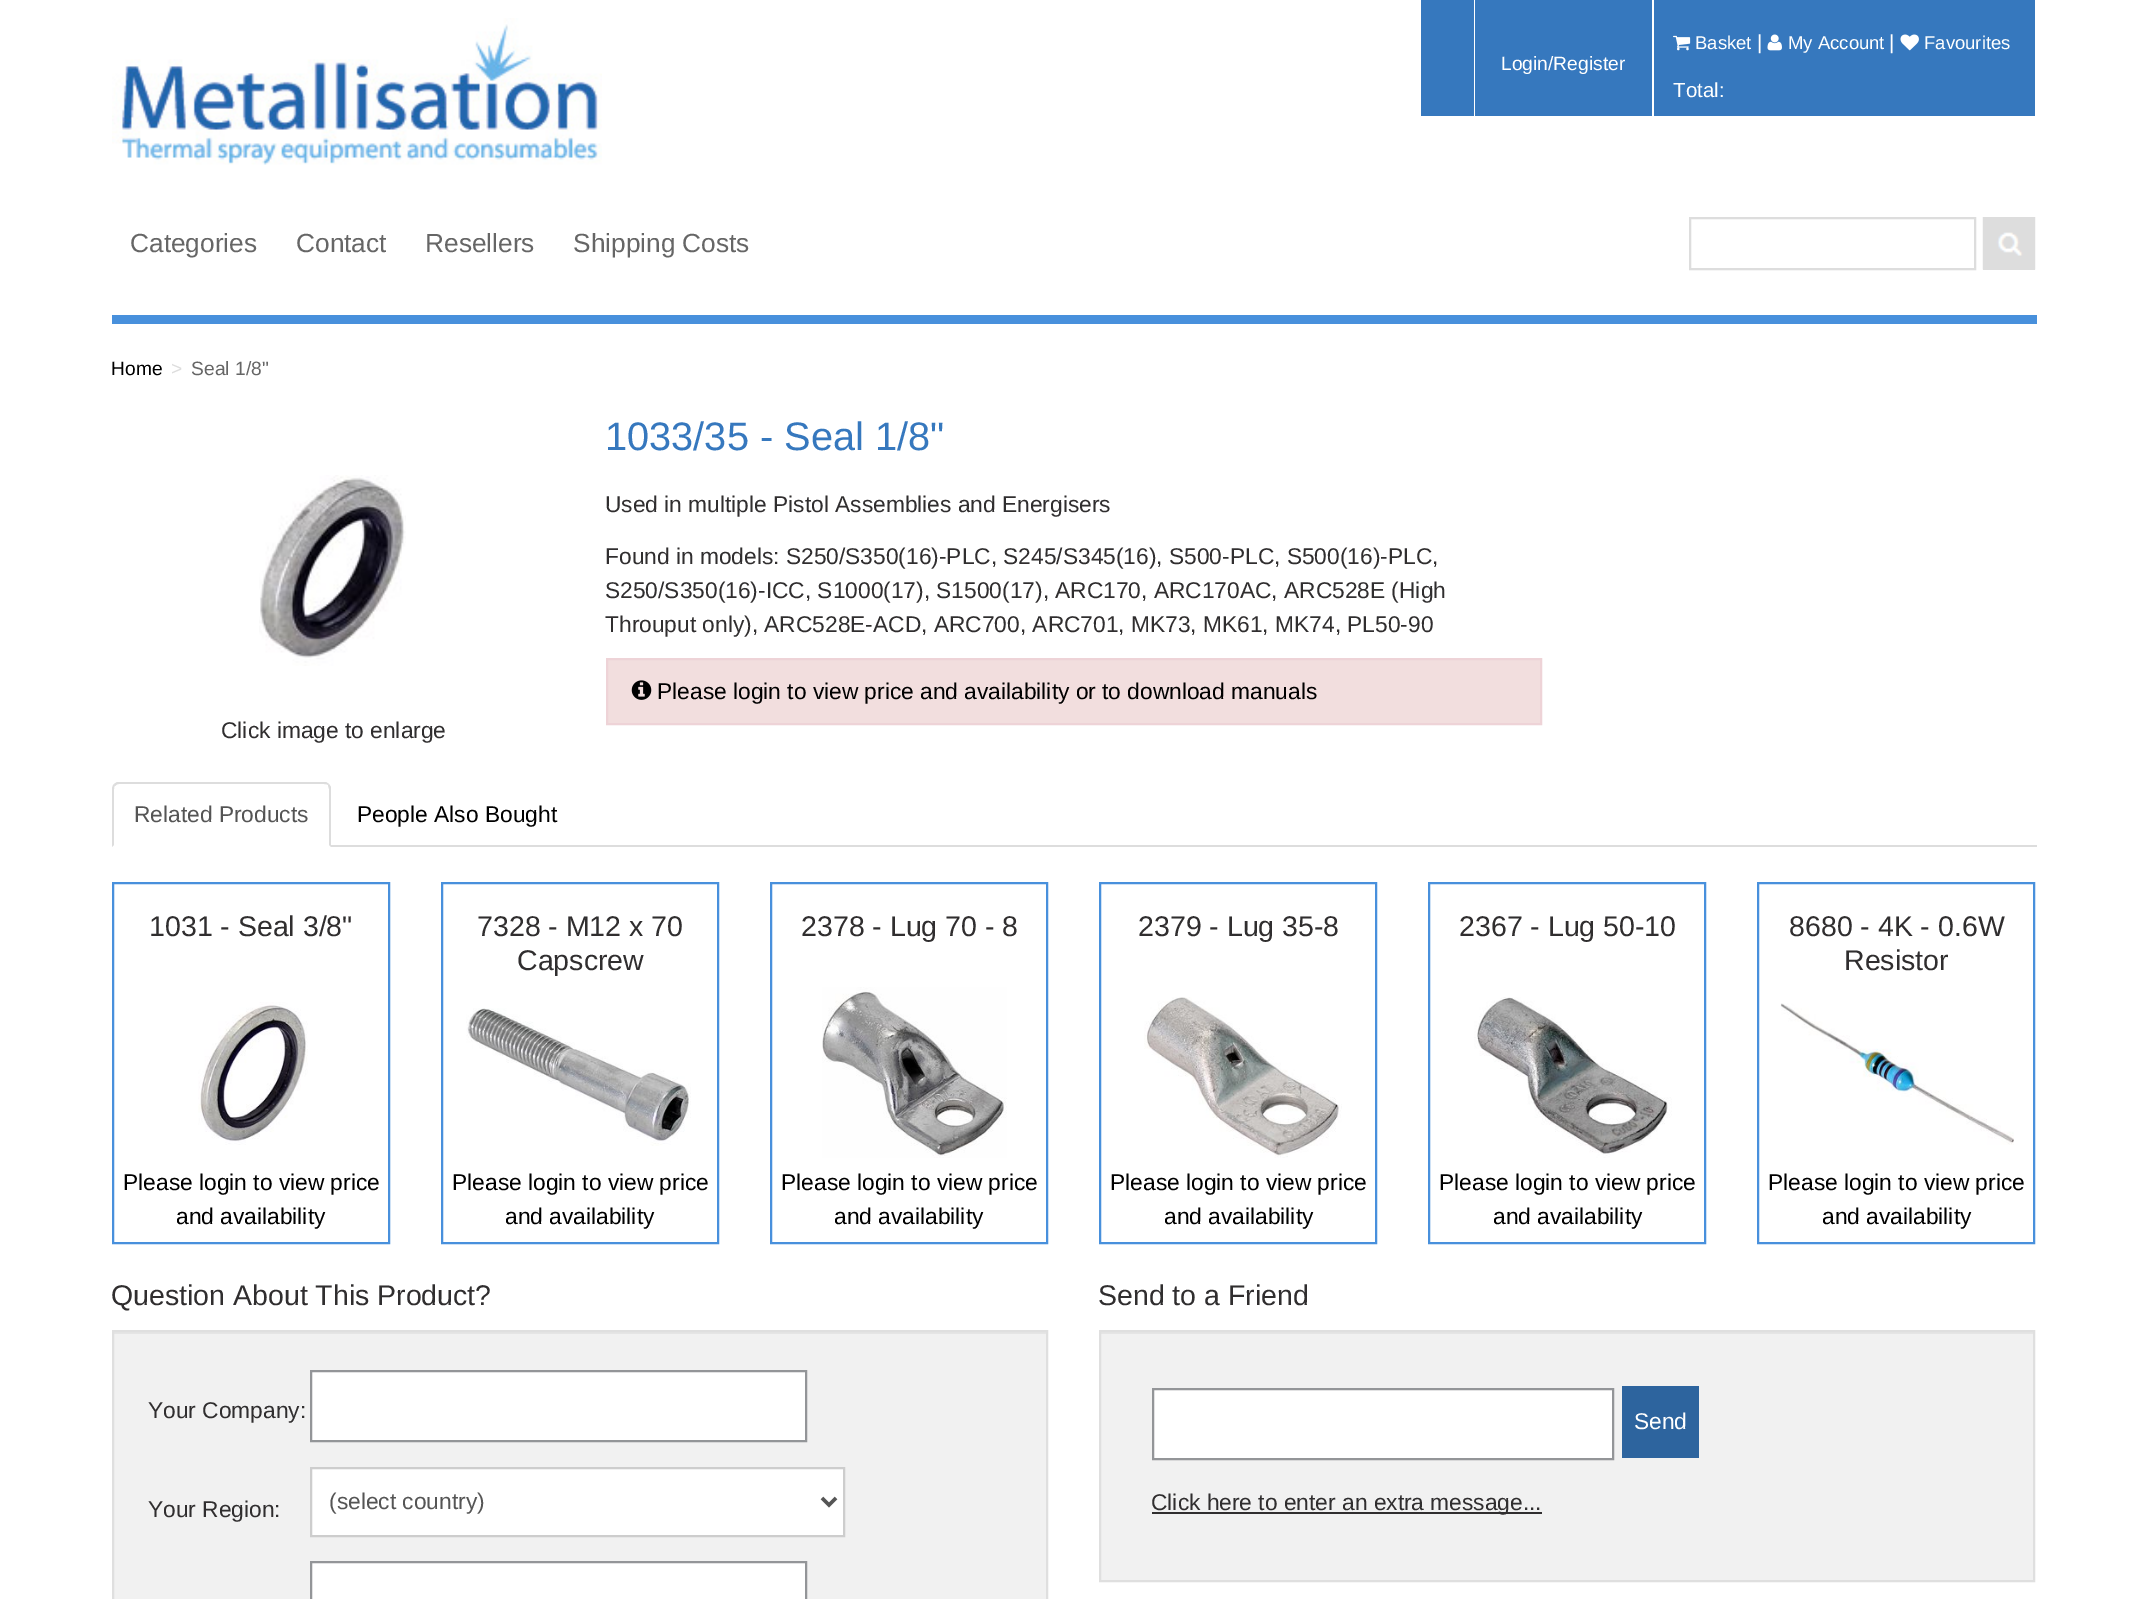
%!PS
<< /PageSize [2147 1599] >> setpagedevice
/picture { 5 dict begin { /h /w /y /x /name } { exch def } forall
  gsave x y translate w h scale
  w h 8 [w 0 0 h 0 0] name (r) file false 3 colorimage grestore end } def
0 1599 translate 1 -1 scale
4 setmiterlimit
1 setgray
0 0 2147 1599 rectfill
(img1.rgb) 112 18 490 147 picture
0.212 0.471 0.745 setrgbcolor
1421 0 53 116 rectfill
1475 0 177 116 rectfill
/LiberationSans-Regular [19.25 0 0 -19.25 0 0] selectfont
1 setgray
1501 70 moveto (Login/Register) show
0.212 0.471 0.745 setrgbcolor
1654 0 381 116 rectfill
(img2.rgb) 1673 35 18 16 picture
/LiberationSans-Regular [18.5 0 0 -18.5 0 0] selectfont
1 setgray
1695 49 moveto (Basket) show
/LiberationSans-Regular [20.5 0 0 -20.5 0 0] selectfont
1757 49 moveto (|) show
(img3.rgb) 1767 34 15 17 picture
/LiberationSans-Regular [18.5 0 0 -18.5 0 0] selectfont
1788 49 moveto (My Account) show
/LiberationSans-Regular [20.5 0 0 -20.5 0 0] selectfont
1889 49 moveto (|) show
(img4.rgb) 1900 34 19 17 picture
/LiberationSans-Regular [18.5 0 0 -18.5 0 0] selectfont
1924 49 moveto (Favourites) show
/LiberationSans-Regular [20.5 0 0 -20.5 0 0] selectfont
1673 97 moveto (Total:) show
0.282 0.565 0.863 setrgbcolor
112 315 1925 9 rectfill
/LiberationSans-Regular [26.25 0 0 -26.25 0 0] selectfont
0.4 setgray
130 252 moveto (Categories) show
296 252 moveto (Contact) show
425 252 moveto (Resellers) show
573 252 moveto (Shipping Costs) show
0.867 setgray
2 setlinewidth
1690 218 285 51 rectstroke
1983 269 52 1 rectfill
(img5.rgb) 1982 217 54 53 picture
/LiberationSans-Regular [19.25 0 0 -19.25 0 0] selectfont
0 setgray
111 375 moveto (Home) show
0.867 setgray
171 375 moveto (>) show
0.4 setgray
191 375 moveto (Seal 1/8") show
/LiberationSans-Regular [39.75 0 0 -39.75 0 0] selectfont
0.212 0.471 0.745 setrgbcolor
605 450 moveto (1033/35 - Seal 1/8") show
/LiberationSans-Regular [22.75 0 0 -22.75 0 0] selectfont
0.188 0.18 0.184 setrgbcolor
605 512 moveto (Used in multiple Pistol Assemblies and Energisers) show
605 564 moveto (Found in models: S250/S350\(16\)-PLC, S245/S345\(16\), S500-PLC, S500\(16\)-PLC,) show
605 598 moveto (S250/S350\(16\)-ICC, S1000\(17\), S1500\(17\), ARC170, ARC170AC, ARC528E \(High) show
605 632 moveto (Throuput only\), ARC528E-ACD, ARC700, ARC701, MK73, MK61, MK74, PL50-90) show
0.949 0.871 0.871 setrgbcolor
newpath 607 659 moveto 1541 659 lineto 1541 724 lineto 607 724 lineto closepath gsave fill grestore
0.933 0.827 0.843 setrgbcolor
stroke
(img6.rgb) 631 680 21 20 picture
0 setgray
657 699 moveto (Please login to view price and availability or to download manuals) show
(img7.rgb) 259 475 147 191 picture
0.188 0.18 0.184 setrgbcolor
221 738 moveto (Click image to enlarge) show
0.867 setgray
331 845 1706 2 rectfill
newpath 119 784 moveto 117 784 116 785 115 786 curveto 114 784 lineto 117 782 lineto 326 782 lineto 329 784 lineto 328 785 lineto 327 784 326 784 324 784 curveto closepath fill
newpath 331 787 moveto 331 847 lineto 329 845 lineto 329 789 lineto 329 788 328 786 328 785 curveto 329 784 lineto closepath fill
newpath 112 847 moveto 114 845 lineto 114 789 lineto 114 788 114 786 115 786 curveto 114 784 lineto 113 785 112 787 112 789 curveto closepath fill
0.333 setgray
134 822 moveto (Related Products) show
0 setgray
357 822 moveto (People Also Bought) show
0.282 0.565 0.863 setrgbcolor
113 883 276 360 rectstroke
/LiberationSans-Regular [28.5 0 0 -28.5 0 0] selectfont
0.188 0.18 0.184 setrgbcolor
149 936 moveto (1031 - Seal 3/8") show
(img8.rgb) 198 1002 110 143 picture
/LiberationSans-Regular [22.75 0 0 -22.75 0 0] selectfont
0 setgray
123 1190 moveto (Please login to view price) show
176 1224 moveto (and availability) show
0.282 0.565 0.863 setrgbcolor
442 883 276 360 rectstroke
/LiberationSans-Regular [28.5 0 0 -28.5 0 0] selectfont
0.188 0.18 0.184 setrgbcolor
477 936 moveto (7328 - M12 x 70) show
517 970 moveto (Capscrew) show
(img9.rgb) 466 1008 225 138 picture
/LiberationSans-Regular [22.75 0 0 -22.75 0 0] selectfont
0 setgray
452 1190 moveto (Please login to view price) show
505 1224 moveto (and availability) show
0.282 0.565 0.863 setrgbcolor
771 883 276 360 rectstroke
/LiberationSans-Regular [28.5 0 0 -28.5 0 0] selectfont
0.188 0.18 0.184 setrgbcolor
801 936 moveto (2378 - Lug 70 - 8) show
(img10.rgb) 822 987 185 171 picture
/LiberationSans-Regular [22.75 0 0 -22.75 0 0] selectfont
0 setgray
781 1190 moveto (Please login to view price) show
834 1224 moveto (and availability) show
0.282 0.565 0.863 setrgbcolor
1100 883 276 360 rectstroke
/LiberationSans-Regular [28.5 0 0 -28.5 0 0] selectfont
0.188 0.18 0.184 setrgbcolor
1138 936 moveto (2379 - Lug 35-8) show
(img11.rgb) 1144 997 198 161 picture
/LiberationSans-Regular [22.75 0 0 -22.75 0 0] selectfont
0 setgray
1110 1190 moveto (Please login to view price) show
1164 1224 moveto (and availability) show
0.282 0.565 0.863 setrgbcolor
1429 883 276 360 rectstroke
/LiberationSans-Regular [28.5 0 0 -28.5 0 0] selectfont
0.188 0.18 0.184 setrgbcolor
1459 936 moveto (2367 - Lug 50-10) show
(img12.rgb) 1474 997 198 161 picture
/LiberationSans-Regular [22.75 0 0 -22.75 0 0] selectfont
0 setgray
1439 1190 moveto (Please login to view price) show
1493 1224 moveto (and availability) show
0.282 0.565 0.863 setrgbcolor
1758 883 276 360 rectstroke
/LiberationSans-Regular [28.5 0 0 -28.5 0 0] selectfont
0.188 0.18 0.184 setrgbcolor
1789 936 moveto (8680 - 4K - 0.6W) show
1844 970 moveto (Resistor) show
(img13.rgb) 1780 1003 234 142 picture
/LiberationSans-Regular [22.75 0 0 -22.75 0 0] selectfont
0 setgray
1768 1190 moveto (Please login to view price) show
1822 1224 moveto (and availability) show
/LiberationSans-Regular [28.5 0 0 -28.5 0 0] selectfont
0.188 0.18 0.184 setrgbcolor
111 1305 moveto (Question About This Product?) show
0.945 setgray
114 1334 932 265 rectfill
0.898 setgray
114 1332 933 2 rectfill
0.875 setgray
113 1331 934 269 rectstroke
/LiberationSans-Regular [22.75 0 0 -22.75 0 0] selectfont
0.188 0.18 0.184 setrgbcolor
148 1418 moveto (Your Company:) show
1 setgray
newpath 311 1371 moveto 806 1371 lineto 806 1441 lineto 311 1441 lineto closepath gsave fill grestore
0.576 0.584 0.596 setrgbcolor
stroke
0.188 0.18 0.184 setrgbcolor
148 1517 moveto (Your Region:) show
1 setgray
newpath 311 1468 moveto 844 1468 lineto 844 1536 lineto 311 1536 lineto closepath gsave fill grestore
0.804 setgray
stroke
0.333 setgray
3.5 setlinewidth
newpath 822 1498 moveto 829 1505 lineto 836 1498 lineto stroke
329 1509 moveto (\(select country\)) show
1 setgray
newpath 311 1562 moveto 806 1562 lineto 806 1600 lineto 311 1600 lineto closepath gsave fill grestore
0.576 0.584 0.596 setrgbcolor
2 setlinewidth
stroke
/LiberationSans-Regular [28.5 0 0 -28.5 0 0] selectfont
0.188 0.18 0.184 setrgbcolor
1098 1305 moveto (Send to a Friend) show
0.945 setgray
1101 1334 932 246 rectfill
0.898 setgray
1101 1332 933 2 rectfill
0.875 setgray
1100 1331 934 250 rectstroke
1 setgray
newpath 1153 1389 moveto 1613 1389 lineto 1613 1459 lineto 1153 1459 lineto closepath gsave fill grestore
0.576 0.584 0.596 setrgbcolor
stroke
0.176 0.392 0.62 setrgbcolor
1622 1386 77 72 rectfill
/LiberationSans-Regular [22.75 0 0 -22.75 0 0] selectfont
1 setgray
1634 1429 moveto (Send) show
0.188 0.18 0.184 setrgbcolor
1152 1512 390 2 rectfill
1151 1510 moveto (Click here to enter an extra message...) show
showpage
